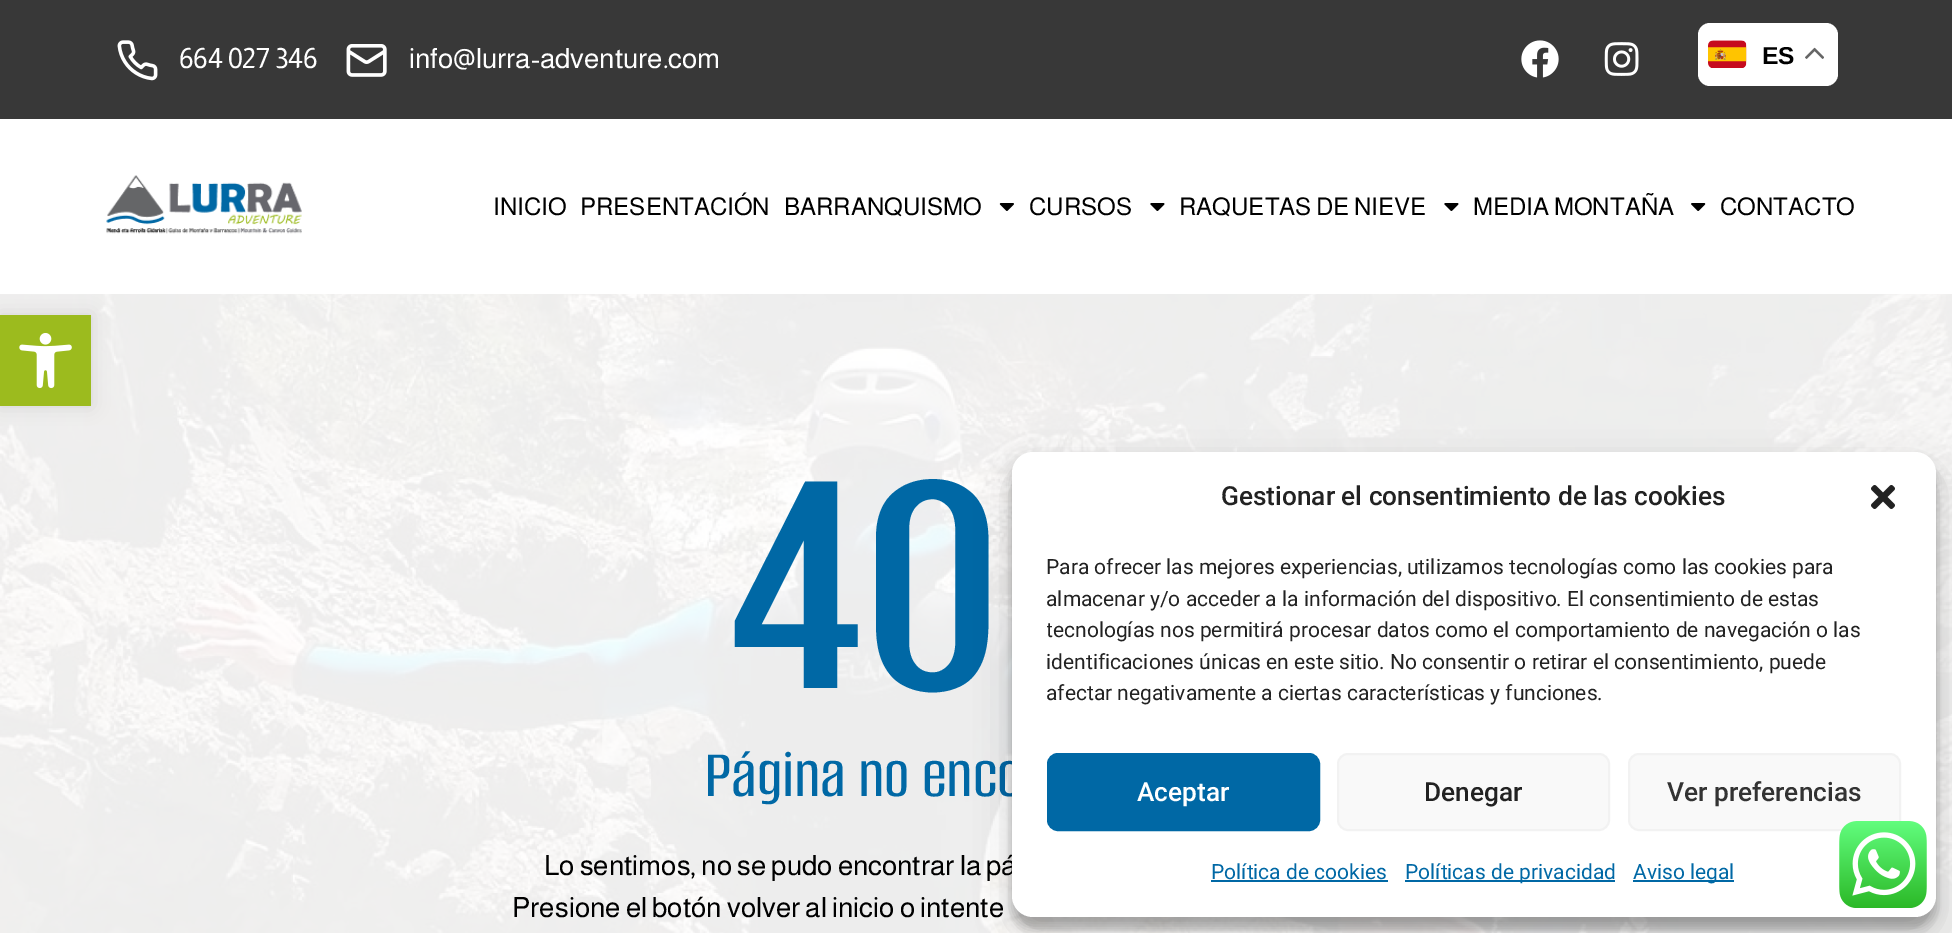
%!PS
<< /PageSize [1952 933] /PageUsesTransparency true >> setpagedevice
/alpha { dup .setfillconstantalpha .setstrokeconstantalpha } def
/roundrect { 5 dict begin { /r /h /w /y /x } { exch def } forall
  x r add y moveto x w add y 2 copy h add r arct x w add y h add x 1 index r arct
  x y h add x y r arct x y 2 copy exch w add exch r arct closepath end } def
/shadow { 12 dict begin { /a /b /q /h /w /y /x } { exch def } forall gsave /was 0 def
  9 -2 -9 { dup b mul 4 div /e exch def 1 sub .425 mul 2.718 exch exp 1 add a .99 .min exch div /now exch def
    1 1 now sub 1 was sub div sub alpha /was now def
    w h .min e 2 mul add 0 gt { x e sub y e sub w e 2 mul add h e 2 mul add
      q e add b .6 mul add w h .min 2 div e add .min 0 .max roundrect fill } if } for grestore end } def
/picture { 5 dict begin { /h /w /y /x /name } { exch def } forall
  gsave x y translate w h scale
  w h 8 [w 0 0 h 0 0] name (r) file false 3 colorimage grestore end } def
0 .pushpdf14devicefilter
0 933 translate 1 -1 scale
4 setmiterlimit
1 setgray
0 0 1952 933 rectfill
0.22 setgray
0 0 1952 119 rectfill
(img1.rgb) 117 40 41 41 picture
/Almarai-Regular [28 0 0 -28 0 0] selectfont
1 setgray
179 68 moveto (664 027 346) show
(img2.rgb) 346 44 41 33 picture
409 68 moveto (info@lurra-adventure.com) show
(img3.rgb) 1521 40 38 38 picture
(img4.rgb) 1604 42 35 34 picture
1698 23 140 63 12 roundrect fill
(img5.rgb) 1708 40 39 28 picture
/LiberationSans-Bold [24.5 0 0 -24.5 0 0] selectfont
0 setgray
1762 64 moveto (ES) show
(img6.rgb) 1805 47 19 12 picture
(img7.rgb) 106 175 196 59 picture
/Almarai-Regular [24.5 0 0 -24.5 0 0] selectfont
493 215 moveto (INICIO) show
580 215 moveto (PRESENTACIÓN) show
784 215 moveto (BARRANQUISMO) show
(img8.rgb) 999 203 15 8 picture
1029 215 moveto (CURSOS) show
(img9.rgb) 1150 203 15 8 picture
1179 215 moveto (RAQUETAS DE NIEVE) show
(img9.rgb) 1444 203 15 8 picture
1473 215 moveto (MEDIA MONTAÑA) show
(img10.rgb) 1691 203 15 8 picture
1720 215 moveto (CONTACTO) show
(img12.rgb) 0 294 1952 639 picture
0 315 91 91 0 9 0.1 shadow
0.612 0.733 0.118 setrgbcolor
0 315 91 91 rectfill
(img11.rgb) 19 333 53 56 picture
/AlumniSans-SemiBold [350 0 0 -350 0 0] selectfont
0 0.408 0.647 setrgbcolor
731 688 moveto (40) show
/AlumniSans-Medium [70 0 0 -70 0 0] selectfont
704 796 moveto (Página no enco) show
/Almarai-Regular [28 0 0 -28 0 0] selectfont
0 setgray
544 875 moveto (Lo sentimos, no se pudo encontrar la pá) show
512 917 moveto (Presione el botón volver al inicio o intente) show
1012 462 924 466 21 5 0.23 shadow
1012 469 924 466 21 17.5 0.19 shadow
1 setgray
1012 452 924 465 21 roundrect fill
/Roboto-Medium [26.25 0 0 -26.25 0 0] selectfont
0.133 setgray
1221 505 moveto (Gestionar el consentimiento de las cookies) show
(img13.rgb) 1871 485 24 24 picture
/Roboto-Regular [21 0 0 -21 0 0] selectfont
1046 574 moveto (Para ofrecer las mejores experiencias, utilizamos tecnologías como las cookies para) show
1046 606 moveto (almacenar y/o acceder a la información del dispositivo. El consentimiento de estas) show
gsave
1047 551 854 167 rectclip
1046 637 moveto (tecnologías nos permitirá procesar datos como el comportamiento de navegación o las) show
grestore
1046 669 moveto (identificaciones únicas en este sitio. No consentir o retirar el consentimiento, puede) show
1046 700 moveto (afectar negativamente a ciertas características y funciones.) show
0 0.408 0.647 setrgbcolor
1048 754 271 76 10 roundrect gsave fill grestore
2 setlinewidth
stroke
/Roboto-Medium [26.25 0 0 -26.25 0 0] selectfont
1 setgray
1137 801 moveto (Aceptar) show
0.976 setgray
1338 754 271 76 10 roundrect gsave fill grestore
0.949 setgray
stroke
0.133 setgray
1424 801 moveto (Denegar) show
0.976 setgray
1629 754 271 76 10 roundrect gsave fill grestore
0.949 setgray
stroke
0.2 setgray
1667 801 moveto (Ver preferencias) show
/Roboto-Regular [21 0 0 -21 0 0] selectfont
0 0.408 0.647 setrgbcolor
1211 879 moveto (Política de cookies) show
1211 880 177 2 rectfill
1405 880 210 2 rectfill
1405 879 moveto (Políticas de privacidad) show
1633 880 101 2 rectfill
1633 879 moveto (Aviso legal) show
(img14.rgb) 1839 821 88 87 picture
.poppdf14devicefilter showpage
